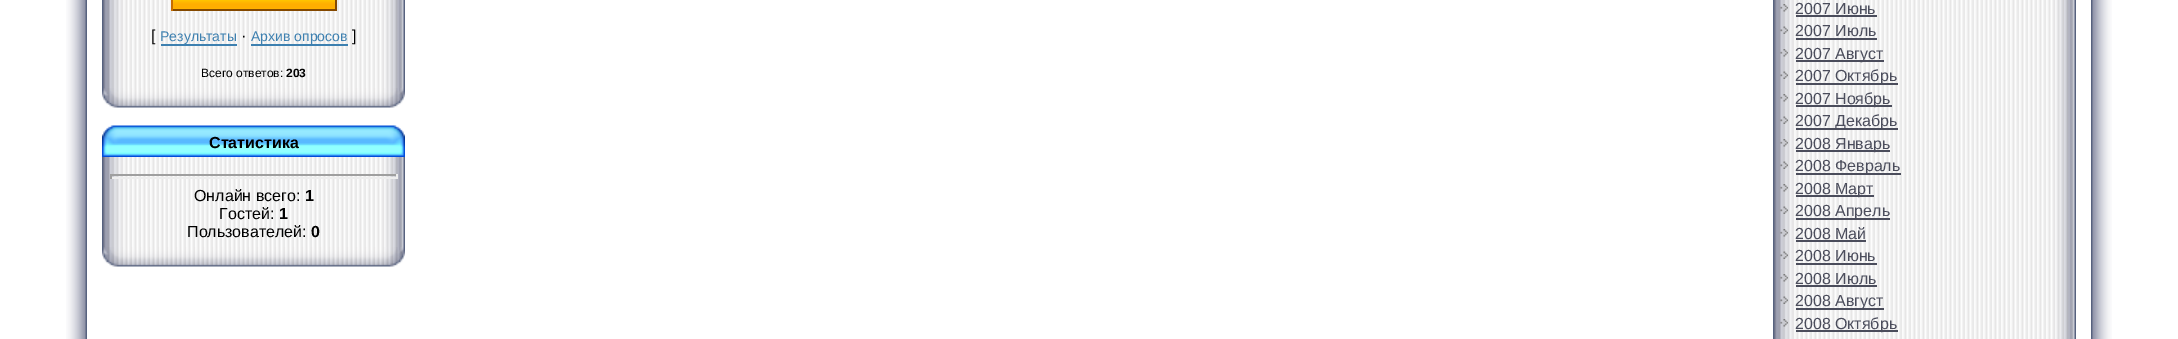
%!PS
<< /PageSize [2178 339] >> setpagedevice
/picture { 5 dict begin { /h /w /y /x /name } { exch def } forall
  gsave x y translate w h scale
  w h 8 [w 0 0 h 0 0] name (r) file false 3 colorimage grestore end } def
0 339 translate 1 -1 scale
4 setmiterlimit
1 setgray
0 0 2178 339 rectfill
(img1.rgb) 66 0 21 339 picture
(img2.rgb) 102 0 303 88 picture
(img3.rgb) 173 0 162 9 picture
0.518 0.286 0 setrgbcolor
335 0 2 11 rectfill
171 9 165 2 rectfill
0.776 0.427 0 setrgbcolor
171 0 2 11 rectfill
/LiberationSans-Regular [16 0 0 -16 0 0] selectfont
0 setgray
151 41 moveto ([) show
/LiberationSans-Regular [14 0 0 -14 0 0] selectfont
0.239 0.502 0.69 setrgbcolor
160 41 moveto (Результаты) show
161 44 76 2 rectfill
/LiberationSans-Regular [16 0 0 -16 0 0] selectfont
0 setgray
241 41 moveto (·) show
/LiberationSans-Regular [14 0 0 -14 0 0] selectfont
0.239 0.502 0.69 setrgbcolor
251 41 moveto (Архив опросов) show
251 44 97 2 rectfill
/LiberationSans-Regular [16 0 0 -16 0 0] selectfont
0 setgray
352 41 moveto (]) show
/LiberationSans-Regular [12 0 0 -12 0 0] selectfont
201 77 moveto (Всего ответов:) show
/LiberationSans-Bold [12 0 0 -12 0 0] selectfont
286 77 moveto (203) show
(img4.rgb) 102 88 303 20 picture
(img5.rgb) 102 125 303 32 picture
/LiberationSans-Bold [16 0 0 -16 0 0] selectfont
209 148 moveto (Статистика) show
(img6.rgb) 102 157 303 90 picture
0.624 setgray
110 174 288 2 rectfill
0.933 setgray
396 174 2 5 rectfill
110 177 288 2 rectfill
0.624 setgray
110 174 2 5 rectfill
/LiberationSans-Regular [16 0 0 -16 0 0] selectfont
0 setgray
194 201 moveto (Онлайн всего:) show
/LiberationSans-Bold [16 0 0 -16 0 0] selectfont
305 201 moveto (1) show
/LiberationSans-Regular [16 0 0 -16 0 0] selectfont
219 219 moveto (Гостей:) show
/LiberationSans-Bold [16 0 0 -16 0 0] selectfont
279 219 moveto (1) show
/LiberationSans-Regular [16 0 0 -16 0 0] selectfont
187 237 moveto (Пользователей:) show
/LiberationSans-Bold [16 0 0 -16 0 0] selectfont
311 237 moveto (0) show
(img4.rgb) 102 247 303 20 picture
(img7.rgb) 1773 0 303 339 picture
(img8.rgb) 1780 4 8 8 picture
/LiberationSans-Regular [16 0 0 -16 0 0] selectfont
0.294 0.302 0.361 setrgbcolor
1795 14 moveto (2007 Июнь) show
1796 15 81 2 rectfill
(img9.rgb) 1780 26 8 8 picture
1795 36 moveto (2007 Июль) show
1796 38 81 2 rectfill
(img8.rgb) 1780 49 8 8 picture
1796 60 88 2 rectfill
1795 59 moveto (2007 Август) show
(img9.rgb) 1780 71 8 8 picture
1796 83 102 2 rectfill
1795 81 moveto (2007 Октябрь) show
(img8.rgb) 1780 94 8 8 picture
1796 105 96 2 rectfill
1795 104 moveto (2007 Ноябрь) show
(img9.rgb) 1780 116 8 8 picture
1796 128 102 2 rectfill
1795 126 moveto (2007 Декабрь) show
(img8.rgb) 1780 139 8 8 picture
1796 150 94 2 rectfill
1795 149 moveto (2008 Январь) show
(img9.rgb) 1780 161 8 8 picture
1796 173 105 2 rectfill
1795 171 moveto (2008 Февраль) show
(img8.rgb) 1780 184 8 8 picture
1796 195 78 2 rectfill
1795 194 moveto (2008 Март) show
(img9.rgb) 1780 206 8 8 picture
1796 218 94 2 rectfill
1795 216 moveto (2008 Апрель) show
(img8.rgb) 1780 229 8 8 picture
1795 239 moveto (2008 Май) show
1796 240 70 2 rectfill
(img9.rgb) 1780 251 8 8 picture
1795 261 moveto (2008 Июнь) show
1796 263 81 2 rectfill
(img8.rgb) 1780 274 8 8 picture
1795 284 moveto (2008 Июль) show
1796 285 81 2 rectfill
(img9.rgb) 1780 296 8 8 picture
1796 308 88 2 rectfill
1795 306 moveto (2008 Август) show
(img8.rgb) 1780 319 8 8 picture
1796 330 102 2 rectfill
1795 329 moveto (2008 Октябрь) show
(img10.rgb) 2091 0 21 339 picture
showpage
